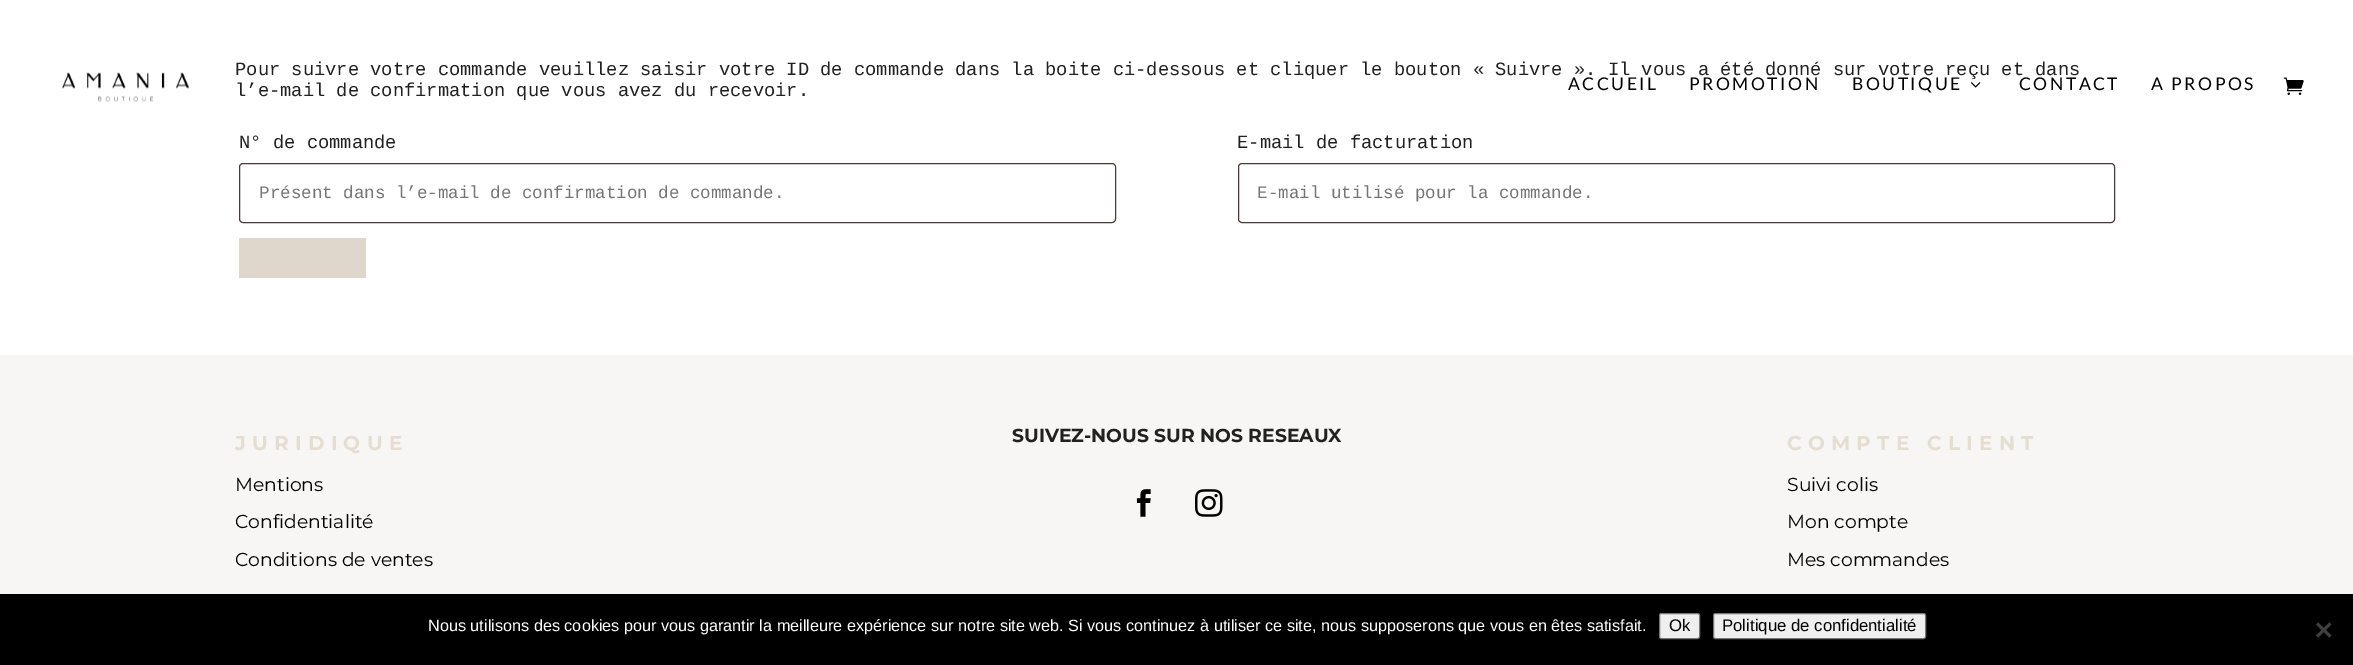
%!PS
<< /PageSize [2353 665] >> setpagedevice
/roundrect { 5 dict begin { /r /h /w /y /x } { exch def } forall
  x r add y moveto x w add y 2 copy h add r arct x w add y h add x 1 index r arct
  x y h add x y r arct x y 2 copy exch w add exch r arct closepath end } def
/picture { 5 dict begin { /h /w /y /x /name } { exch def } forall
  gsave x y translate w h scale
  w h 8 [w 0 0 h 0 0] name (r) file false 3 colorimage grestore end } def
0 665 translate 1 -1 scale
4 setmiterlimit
1 setgray
0 0 2353 665 rectfill
/LiberationMono-Regular [18.75 0 0 -18.75 0 0] selectfont
0.129 setgray
235 75 moveto (Pour suivre votre commande veuillez saisir votre ID de commande dans la boite ci-dessous et cliquer le bouton « Suivre ». Il vous a été donné sur votre reçu et dans) show
235 96 moveto (l’e-mail de confirmation que vous avez du recevoir.) show
239 148 moveto (N° de commande) show
0.302 0.224 0.224 setrgbcolor
239.5 163.5 876 59 3.5 roundrect stroke
/LiberationMono-Regular [17.5 0 0 -17.5 0 0] selectfont
0.459 setgray
259 198 moveto (Présent dans l’e-mail de confirmation de commande.) show
/LiberationMono-Regular [18.75 0 0 -18.75 0 0] selectfont
0.129 setgray
1237 148 moveto (E-mail de facturation) show
0.302 0.224 0.224 setrgbcolor
1238.5 163.5 876 59 3.5 roundrect stroke
/LiberationMono-Regular [17.5 0 0 -17.5 0 0] selectfont
0.459 setgray
1257 198 moveto (E-mail utilisé pour la commande.) show
0.875 0.843 0.8 setrgbcolor
239 238 127 40 rectfill
0.969 0.965 0.961 setrgbcolor
0 355 2353 239 rectfill
/Montserrat-Bold [20 0 0 -20 0 0] selectfont
0.902 0.867 0.82 setrgbcolor
235 450 moveto 6.25 0 (JURIDIQUE) ashow
/Montserrat-Regular [18.75 0 0 -18.75 0 0] selectfont
0 setgray
235 491 moveto (Mentions) show
235 528 moveto (Confidentialité) show
235 566 moveto (Conditions de ventes) show
/Montserrat-Bold [18.75 0 0 -18.75 0 0] selectfont
0.129 setgray
1012 442 moveto (SUIVEZ-NOUS SUR NOS RESEAUX) show
(img1.rgb) 1136 489 15 28 picture
(img2.rgb) 1195 489 28 28 picture
/Montserrat-Bold [20 0 0 -20 0 0] selectfont
0.902 0.867 0.82 setrgbcolor
1787 450 moveto 6.25 0 (COMPTE CLIENT) ashow
/Montserrat-Regular [18.75 0 0 -18.75 0 0] selectfont
0 setgray
1787 491 moveto (Suivi colis) show
1787 528 moveto (Mon compte) show
1787 566 moveto (Mes commandes) show
(img3.rgb) 62 72 127 30 picture
/Lato-Regular [17.5 0 0 -17.5 0 0] selectfont
1568 90 moveto 2.5 0 (ACCUEIL) ashow
1689 90 moveto 2.5 0 (PROMOTION) ashow
1852 90 moveto 2.5 0 (BOUTIQUE) ashow
(img4.rgb) 1971 82 10 6 picture
2019 90 moveto 2.5 0 (CONTACT) ashow
2151 90 moveto 2.5 0 (A PROPOS) ashow
(img5.rgb) 2283 77 21 18 picture
0 594 2353 71 rectfill
/LiberationSans-Regular [16.25 0 0 -16.25 0 0] selectfont
1 setgray
428 631 moveto (Nous utilisons des cookies pour vous garantir la meilleure expérience sur notre site web. Si vous continuez à utiliser ce site, nous supposerons que vous en êtes satisfait.) show
0.937 setgray
1659.5 613.5 40 25 2 roundrect gsave fill grestore
0.463 setgray
stroke
/LiberationSans-Regular [16.75 0 0 -16.75 0 0] selectfont
0 setgray
1669 631 moveto (Ok) show
0.937 setgray
1713.5 613.5 212 25 2 roundrect gsave fill grestore
0.463 setgray
stroke
0 setgray
1722 631 moveto (Politique de confidentialité) show
0.251 setgray
newpath 2329.5 622.5 moveto 2331.5 624.5 lineto 2318 637.5 lineto 2316 635.5 lineto closepath fill
newpath 2316 624.5 moveto 2318 622.5 lineto 2331.5 635.5 lineto 2329.5 637.5 lineto closepath fill
showpage
